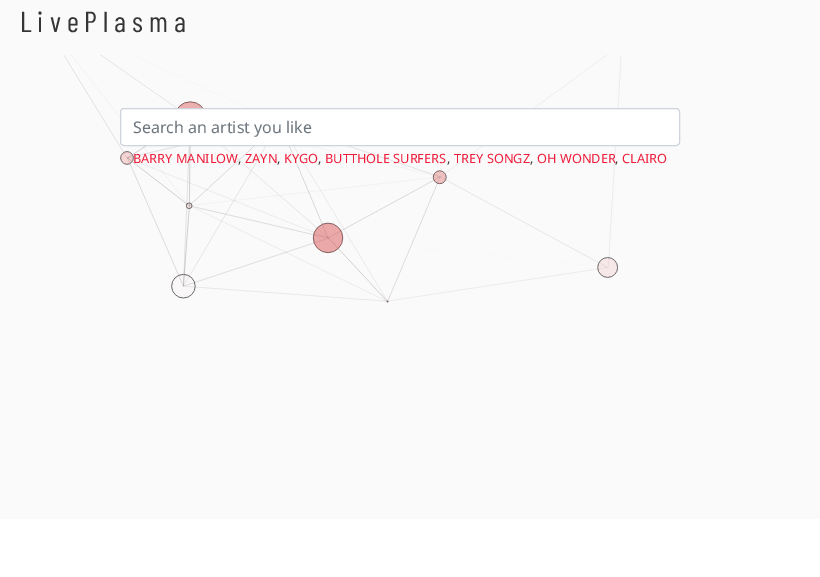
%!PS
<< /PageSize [820 577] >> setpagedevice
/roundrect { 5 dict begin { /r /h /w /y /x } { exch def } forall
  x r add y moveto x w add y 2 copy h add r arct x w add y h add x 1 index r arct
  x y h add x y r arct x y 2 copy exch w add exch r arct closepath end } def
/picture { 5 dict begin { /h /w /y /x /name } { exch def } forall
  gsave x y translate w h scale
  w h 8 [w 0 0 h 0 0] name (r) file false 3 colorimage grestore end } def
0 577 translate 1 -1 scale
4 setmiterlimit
0.98 setgray
0 0 820 577 rectfill
/BarlowCondensed-Regular [29 0 0 -29 0 0] selectfont
0.208 setgray
20 32 moveto 6 0 (LivePlasma) ashow
(img1.rgb) 63 55 559 248 picture
1 setgray
120.5 108.5 559 37 3.5 roundrect gsave fill grestore
0.808 0.831 0.855 setrgbcolor
stroke
/NotoSans-Regular [16 0 0 -16 0 0] selectfont
0.424 0.459 0.49 setrgbcolor
133 133 moveto (Search an artist you like) show
/NotoSans-Regular [12.75 0 0 -12.75 0 0] selectfont
0.937 0.114 0.227 setrgbcolor
133 163 moveto (BARRY MANILOW) show
0.208 setgray
238 163 moveto (,) show
0.937 0.114 0.227 setrgbcolor
245 163 moveto (ZAYN) show
0.208 setgray
277 163 moveto (,) show
0.937 0.114 0.227 setrgbcolor
284 163 moveto (KYGO) show
0.208 setgray
318 163 moveto (,) show
0.937 0.114 0.227 setrgbcolor
325 163 moveto (BUTTHOLE SURFERS) show
0.208 setgray
447 163 moveto (,) show
0.937 0.114 0.227 setrgbcolor
454 163 moveto (TREY SONGZ) show
0.208 setgray
530 163 moveto (,) show
0.937 0.114 0.227 setrgbcolor
537 163 moveto (OH WONDER) show
0.208 setgray
615 163 moveto (,) show
0.937 0.114 0.227 setrgbcolor
622 163 moveto (CLAIRO) show
1 setgray
0 519 820 58 rectfill
showpage
